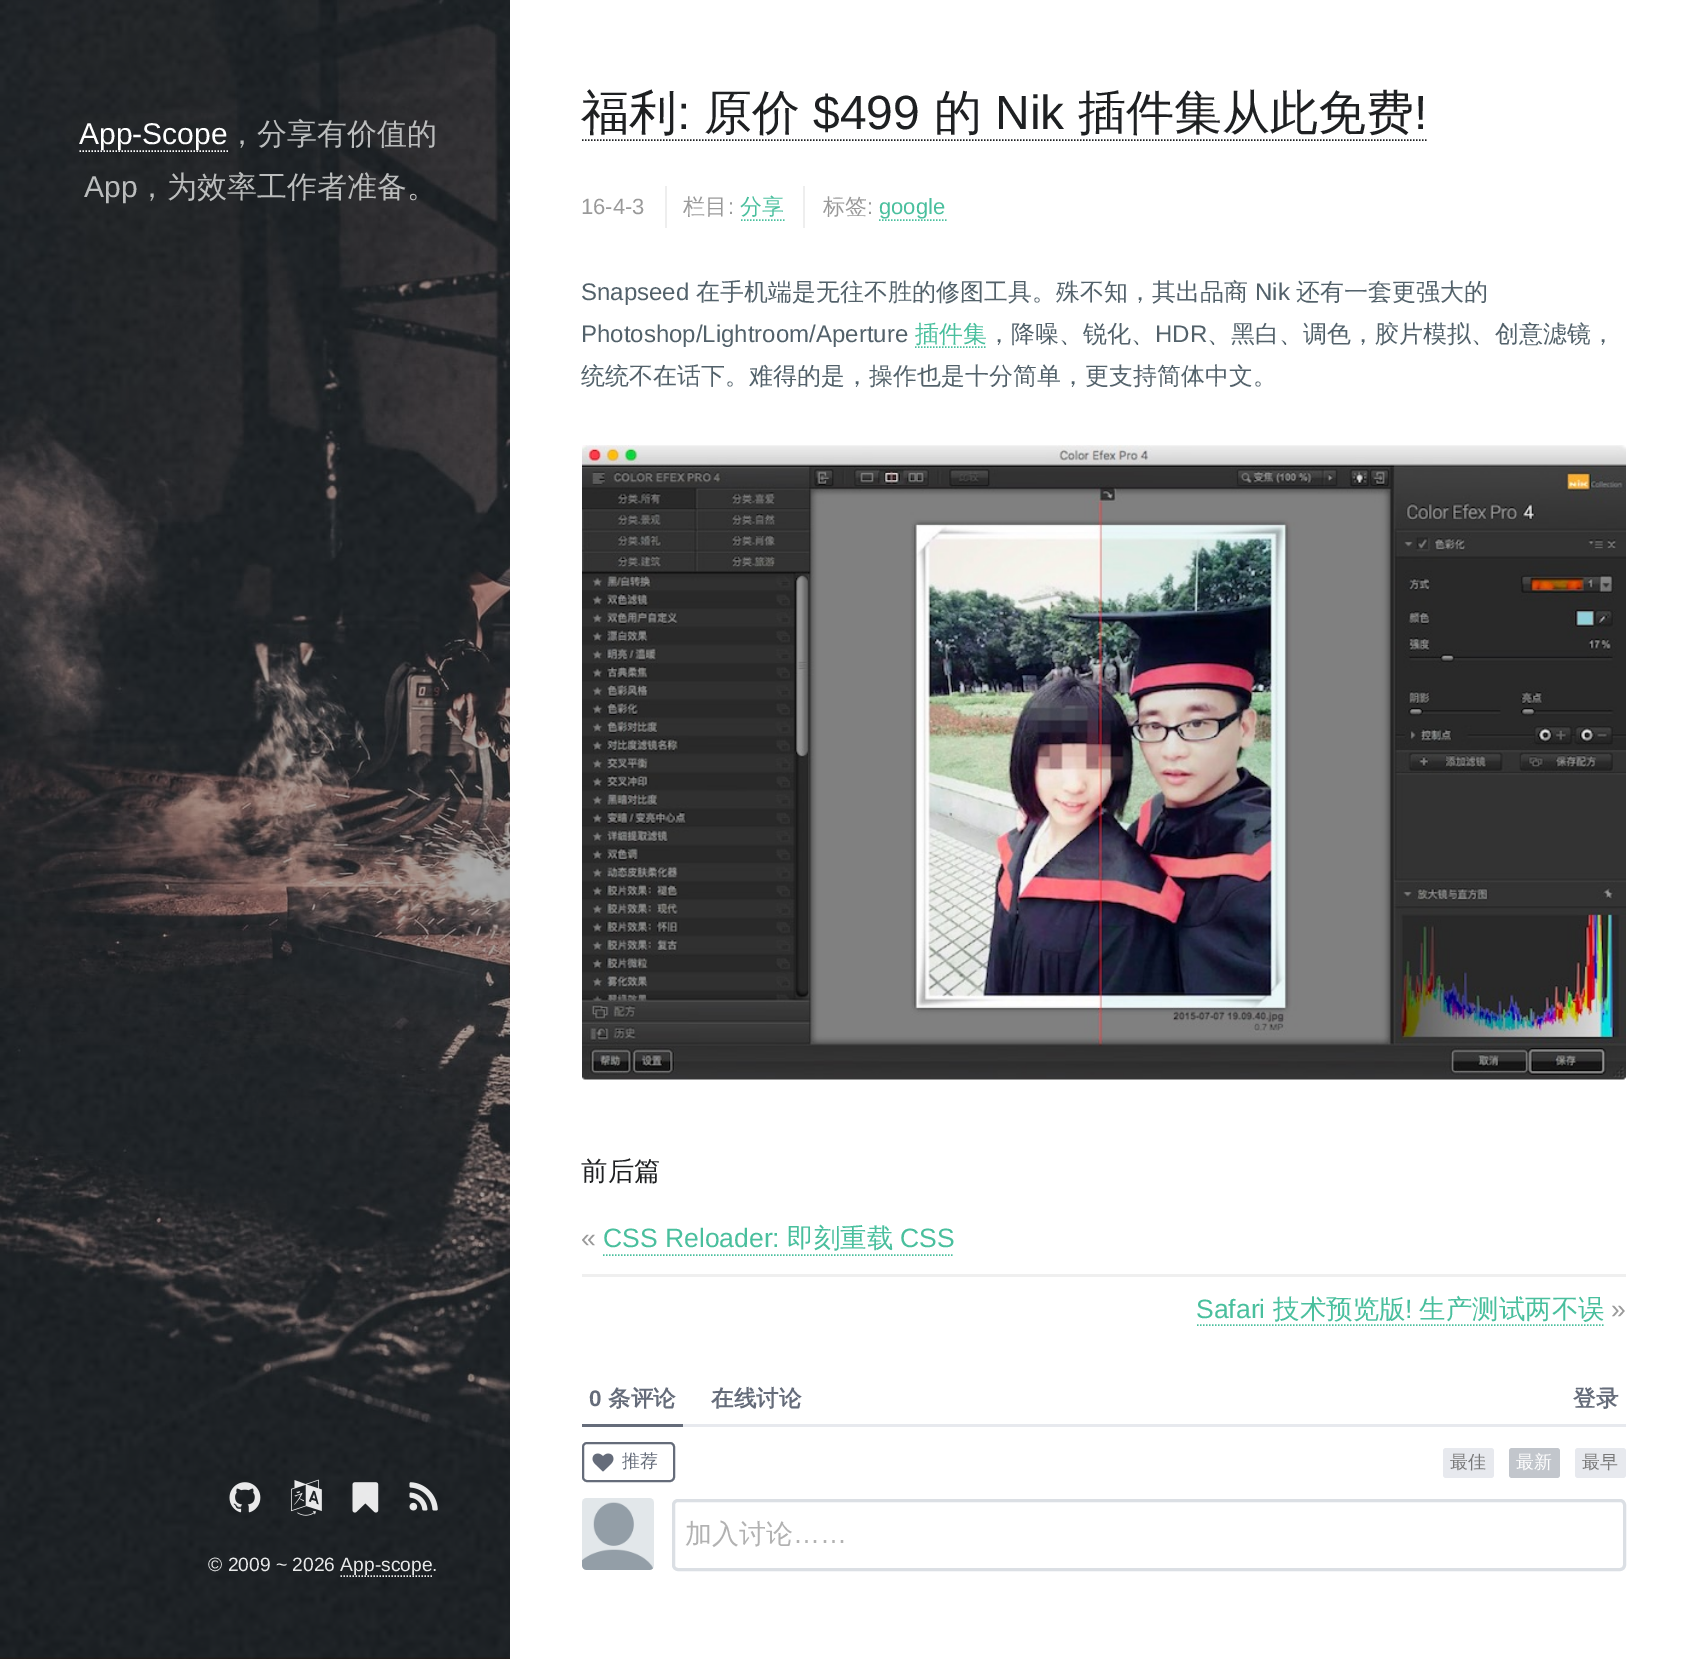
%!PS
<< /PageSize [1697 1659] /PageUsesTransparency true >> setpagedevice
/alpha { dup .setfillconstantalpha .setstrokeconstantalpha } def
/roundrect { 5 dict begin { /r /h /w /y /x } { exch def } forall
  x r add y moveto x w add y 2 copy h add r arct x w add y h add x 1 index r arct
  x y h add x y r arct x y 2 copy exch w add exch r arct closepath end } def
/picture { 5 dict begin { /h /w /y /x /name } { exch def } forall
  gsave x y translate w h scale
  w h 8 [w 0 0 h 0 0] name (r) file false 3 colorimage grestore end } def
0 .pushpdf14devicefilter
0 1659 translate 1 -1 scale
4 setmiterlimit
1 setgray
0 0 1697 1659 rectfill
0.122 0.094 0.082 setrgbcolor
0 1657 510 2 rectfill
(img1.rgb) 0 0 510 1659 picture
1 setgray
1.5 setlinewidth
[1.5 1.5] 0 setdash
newpath 79.5 151 moveto 228 151 lineto stroke
/LiberationSans-Regular [30 0 0 -30 0 0] selectfont
79 144 moveto (App-Scope) show
/WenQuanYiZenHei-Medium [30 0 0 -30 0 0] selectfont
0.733 0.741 0.741 setrgbcolor
227 144 moveto (，) show
257 144 moveto (分享有价值的) show
/LiberationSans-Regular [30 0 0 -30 0 0] selectfont
84 197 moveto (App) show
/WenQuanYiZenHei-Medium [30 0 0 -30 0 0] selectfont
137 197 moveto (，为效率工作者准备。) show
(img2.rgb) 229 1482 32 31 picture
(img3.rgb) 291 1479 31 37 picture
(img4.rgb) 352 1482 27 31 picture
(img5.rgb) 409 1482 29 29 picture
/LiberationSans-Regular [19.25 0 0 -19.25 0 0] selectfont
0.91 0.914 0.914 setrgbcolor
208 1571 moveto (© 2009 ~ 2026 App-scope.) show
0.9 alpha
1 setgray
newpath 340.5 1576 moveto 432 1576 lineto stroke
/WenQuanYiZenHei-Medium [48 0 0 -48 0 0] selectfont
1 alpha
0.118 0.125 0.133 setrgbcolor
581 129 moveto (福利) show
/LiberationSans-Regular [48 0 0 -48 0 0] selectfont
677 129 moveto (:) show
newpath 582 140 moveto 1426.5 140 lineto stroke
/WenQuanYiZenHei-Medium [48 0 0 -48 0 0] selectfont
704 129 moveto (原价) show
/LiberationSans-Regular [48 0 0 -48 0 0] selectfont
813 129 moveto ($499) show
/WenQuanYiZenHei-Medium [48 0 0 -48 0 0] selectfont
934 129 moveto (的) show
/LiberationSans-Regular [48 0 0 -48 0 0] selectfont
995 129 moveto (Nik) show
/WenQuanYiZenHei-Medium [48 0 0 -48 0 0] selectfont
1078 129 moveto (插件集从此免费) show
/LiberationSans-Regular [48 0 0 -48 0 0] selectfont
1414 129 moveto (!) show
/LiberationSans-Regular [22 0 0 -22 0 0] selectfont
0.6 setgray
581 214 moveto (16-4-3) show
0.933 setgray
665 186 2 42 rectfill
/WenQuanYiZenHei-Medium [22 0 0 -22 0 0] selectfont
0.6 setgray
683 214 moveto (栏目) show
/LiberationSans-Regular [22 0 0 -22 0 0] selectfont
728 214 moveto (:) show
/WenQuanYiZenHei-Medium [22 0 0 -22 0 0] selectfont
0.286 0.749 0.616 setrgbcolor
740 214 moveto (分享) show
newpath 741 220 moveto 784.5 220 lineto stroke
0.933 setgray
803 186 2 42 rectfill
0.6 setgray
823 214 moveto (标签) show
/LiberationSans-Regular [22 0 0 -22 0 0] selectfont
867 214 moveto (:) show
0.286 0.749 0.616 setrgbcolor
879 214 moveto (google) show
newpath 879 220 moveto 946.5 220 lineto stroke
/LiberationSans-Regular [24 0 0 -24 0 0] selectfont
0.322 0.38 0.416 setrgbcolor
581 300 moveto (Snapseed) show
/WenQuanYiZenHei-Medium [24 0 0 -24 0 0] selectfont
696 300 moveto (在手机端是无往不胜的修图工具。殊不知，其出品商) show
/LiberationSans-Regular [24 0 0 -24 0 0] selectfont
1255 300 moveto (Nik) show
/WenQuanYiZenHei-Medium [24 0 0 -24 0 0] selectfont
1296 300 moveto (还有一套更强大的) show
/LiberationSans-Regular [24 0 0 -24 0 0] selectfont
581 342 moveto (Photoshop/Lightroom/Aperture) show
/WenQuanYiZenHei-Medium [24 0 0 -24 0 0] selectfont
0.286 0.749 0.616 setrgbcolor
915 342 moveto (插件集) show
newpath 915 347 moveto 987 347 lineto stroke
0.322 0.38 0.416 setrgbcolor
987 342 moveto (，降噪、锐化、) show
/LiberationSans-Regular [24 0 0 -24 0 0] selectfont
1155 342 moveto (HDR) show
/WenQuanYiZenHei-Medium [24 0 0 -24 0 0] selectfont
1207 342 moveto (、黑白、调色，胶片模拟、创意滤镜，) show
581 384 moveto (统统不在话下。难得的是，操作也是十分简单，更支持简体中文。) show
(img6.rgb) 582 445 1044 635 picture
/WenQuanYiZenHei-Medium [26.5 0 0 -26.5 0 0] selectfont
0.118 0.125 0.133 setrgbcolor
581 1180 moveto (前后篇) show
/LiberationSans-Regular [26.5 0 0 -26.5 0 0] selectfont
0.6 setgray
581 1247 moveto («) show
0.286 0.749 0.616 setrgbcolor
603 1247 moveto (CSS Reloader:) show
/WenQuanYiZenHei-Medium [26.5 0 0 -26.5 0 0] selectfont
787 1247 moveto (即刻重载) show
/LiberationSans-Regular [26.5 0 0 -26.5 0 0] selectfont
900 1247 moveto (CSS) show
newpath 603 1255 moveto 954 1255 lineto stroke
0.937 setgray
582 1274 1044 3 rectfill
0.286 0.749 0.616 setrgbcolor
1196 1318 moveto (Safari) show
/WenQuanYiZenHei-Medium [26.5 0 0 -26.5 0 0] selectfont
1273 1318 moveto (技术预览版) show
newpath 1197 1325 moveto 1603.5 1325 lineto stroke
/LiberationSans-Regular [26.5 0 0 -26.5 0 0] selectfont
1405 1318 moveto (!) show
/WenQuanYiZenHei-Medium [26.5 0 0 -26.5 0 0] selectfont
1419 1318 moveto (生产测试两不误) show
/LiberationSans-Regular [26.5 0 0 -26.5 0 0] selectfont
0.6 setgray
1611 1318 moveto (») show
0.906 0.914 0.933 setrgbcolor
683 1424 943 3 rectfill
0.396 0.424 0.478 setrgbcolor
582 1424 101 3 rectfill
/LiberationSans-Bold [22.5 0 0 -22.5 0 0] selectfont
589 1406 moveto (0) show
/WenQuanYiZenHei-Bold [22.5 0 0 -22.5 0 0] selectfont
608 1406 moveto (条评论) show
711 1406 moveto (在线讨论) show
1573 1406 moveto (登录) show
2 setlinewidth
[] 0 setdash
583 1443 91 38 4 roundrect stroke
(img7.rgb) 592 1453 22 19 picture
/WenQuanYiZenHei-Medium [18 0 0 -18 0 0] selectfont
622 1467 moveto (推荐) show
0.906 0.914 0.933 setrgbcolor
1443 1448 51 30 3 roundrect fill
0.471 setgray
1450 1468 moveto (最佳) show
0.761 0.776 0.8 setrgbcolor
1509 1448 51 30 3 roundrect fill
1 setgray
1516 1468 moveto (最新) show
0.906 0.914 0.933 setrgbcolor
1575 1448 51 30 3 roundrect fill
0.471 setgray
1582 1468 moveto (最早) show
(img8.rgb) 582 1498 72 72 picture
0.859 0.875 0.894 setrgbcolor
3 setlinewidth
673.5 1500.5 951 69 4.5 roundrect stroke
/WenQuanYiZenHei-Medium [27 0 0 -27 0 0] selectfont
0.698 setgray
685 1543 moveto (加入讨论) show
/LiberationSans-Regular [27 0 0 -27 0 0] selectfont
793 1543 moveto (……) show
.poppdf14devicefilter showpage
